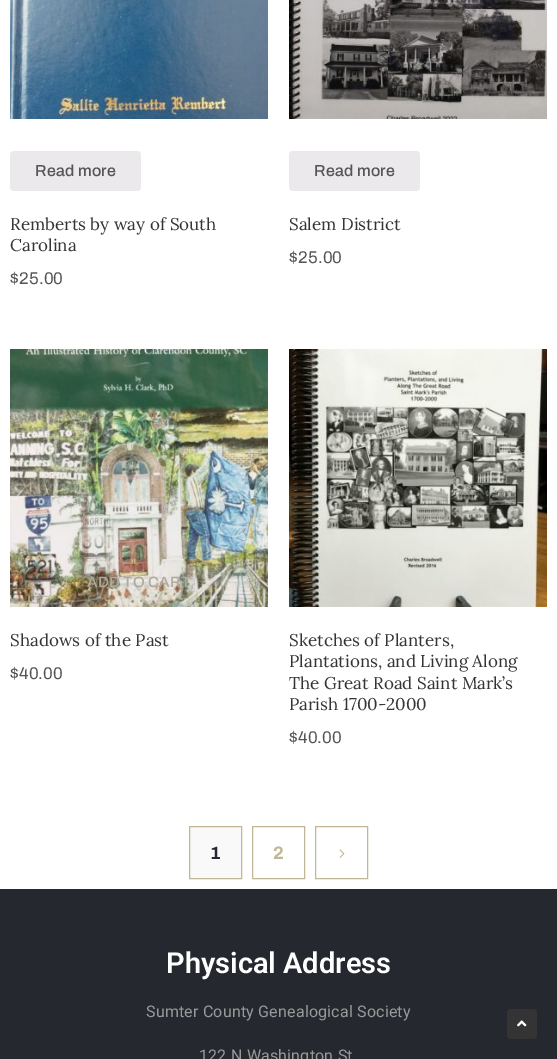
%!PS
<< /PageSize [557 1059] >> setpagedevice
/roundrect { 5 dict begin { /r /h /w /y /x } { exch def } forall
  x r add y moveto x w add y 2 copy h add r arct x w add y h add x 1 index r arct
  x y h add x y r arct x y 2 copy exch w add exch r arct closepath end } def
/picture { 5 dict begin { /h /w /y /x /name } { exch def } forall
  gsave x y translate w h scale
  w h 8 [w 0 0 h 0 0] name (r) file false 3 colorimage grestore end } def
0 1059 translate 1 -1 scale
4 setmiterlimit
1 setgray
0 0 557 1059 rectfill
(img1.rgb) 10 0 258 119 picture
0.922 0.914 0.922 setrgbcolor
10 151 131 40 4 roundrect fill
/Archivo-Medium [16 0 0 -16 0 0] selectfont
0.333 setgray
35 176 moveto 0.2 0 (Read more) ashow
/Lora-Regular [17 0 0 -17 0 0] selectfont
0.204 setgray
10 230 moveto (Remberts by way of South) show
10 251 moveto (Carolina) show
/Archivo-Regular [17 0 0 -17 0 0] selectfont
0.333 setgray
10 284 moveto 0.2 0 ($25.00) ashow
(img2.rgb) 289 0 258 119 picture
0.922 0.914 0.922 setrgbcolor
289 151 131 40 4 roundrect fill
/Archivo-Medium [16 0 0 -16 0 0] selectfont
0.333 setgray
314 176 moveto 0.2 0 (Read more) ashow
/Lora-Regular [17 0 0 -17 0 0] selectfont
0.204 setgray
289 230 moveto (Salem District) show
/Archivo-Regular [17 0 0 -17 0 0] selectfont
0.333 setgray
289 263 moveto 0.2 0 ($25.00) ashow
(img3.rgb) 10 349 258 258 picture
/Archivo-Medium [15 0 0 -15 0 0] selectfont
0.69 0.663 0.612 setrgbcolor
87 587 moveto 0.2 0 (ADD TO CART) ashow
/Lora-Regular [17 0 0 -17 0 0] selectfont
0.204 setgray
10 646 moveto (Shadows of the Past) show
/Archivo-Regular [17 0 0 -17 0 0] selectfont
0.333 setgray
10 679 moveto 0.2 0 ($40.00) ashow
(img4.rgb) 289 349 258 258 picture
/Lora-Regular [17 0 0 -17 0 0] selectfont
0.204 setgray
289 646 moveto (Sketches of Planters,) show
289 667 moveto (Plantations, and Living Along) show
289 689 moveto (The Great Road Saint Mark’s) show
289 710 moveto (Parish 1700-2000) show
/Archivo-Regular [17 0 0 -17 0 0] selectfont
0.333 setgray
289 743 moveto 0.2 0 ($40.00) ashow
0.976 setgray
newpath 189.5 826.5 moveto 241.5 826.5 lineto 241.5 878.5 lineto 189.5 878.5 lineto closepath gsave fill grestore
0.757 0.714 0.588 setrgbcolor
stroke
/Archivo-Bold [18 0 0 -18 0 0] selectfont
0.145 0.157 0.18 setrgbcolor
210 859 moveto 0.2 0 (1) ashow
0.757 0.714 0.588 setrgbcolor
252.5 826.5 52 52 rectstroke
273 859 moveto 0.2 0 (2) ashow
315.5 826.5 52 52 rectstroke
(img5.rgb) 339 849 6 9 picture
0.145 0.157 0.18 setrgbcolor
0 889 557 170 rectfill
/Roboto-SemiBold [29 0 0 -29 0 0] selectfont
1 setgray
166 973 moveto (Physical Address) show
/Roboto-Regular [16 0 0 -16 0 0] selectfont
0.6 setgray
146 1017 moveto 0.2 0 (Sumter County Genealogical Society) ashow
199 1061 moveto 0.2 0 (122 N Washington St) ashow
0.204 setgray
507 1009 30 30 4 roundrect fill
(img6.rgb) 517 1020 10 7 picture
showpage
